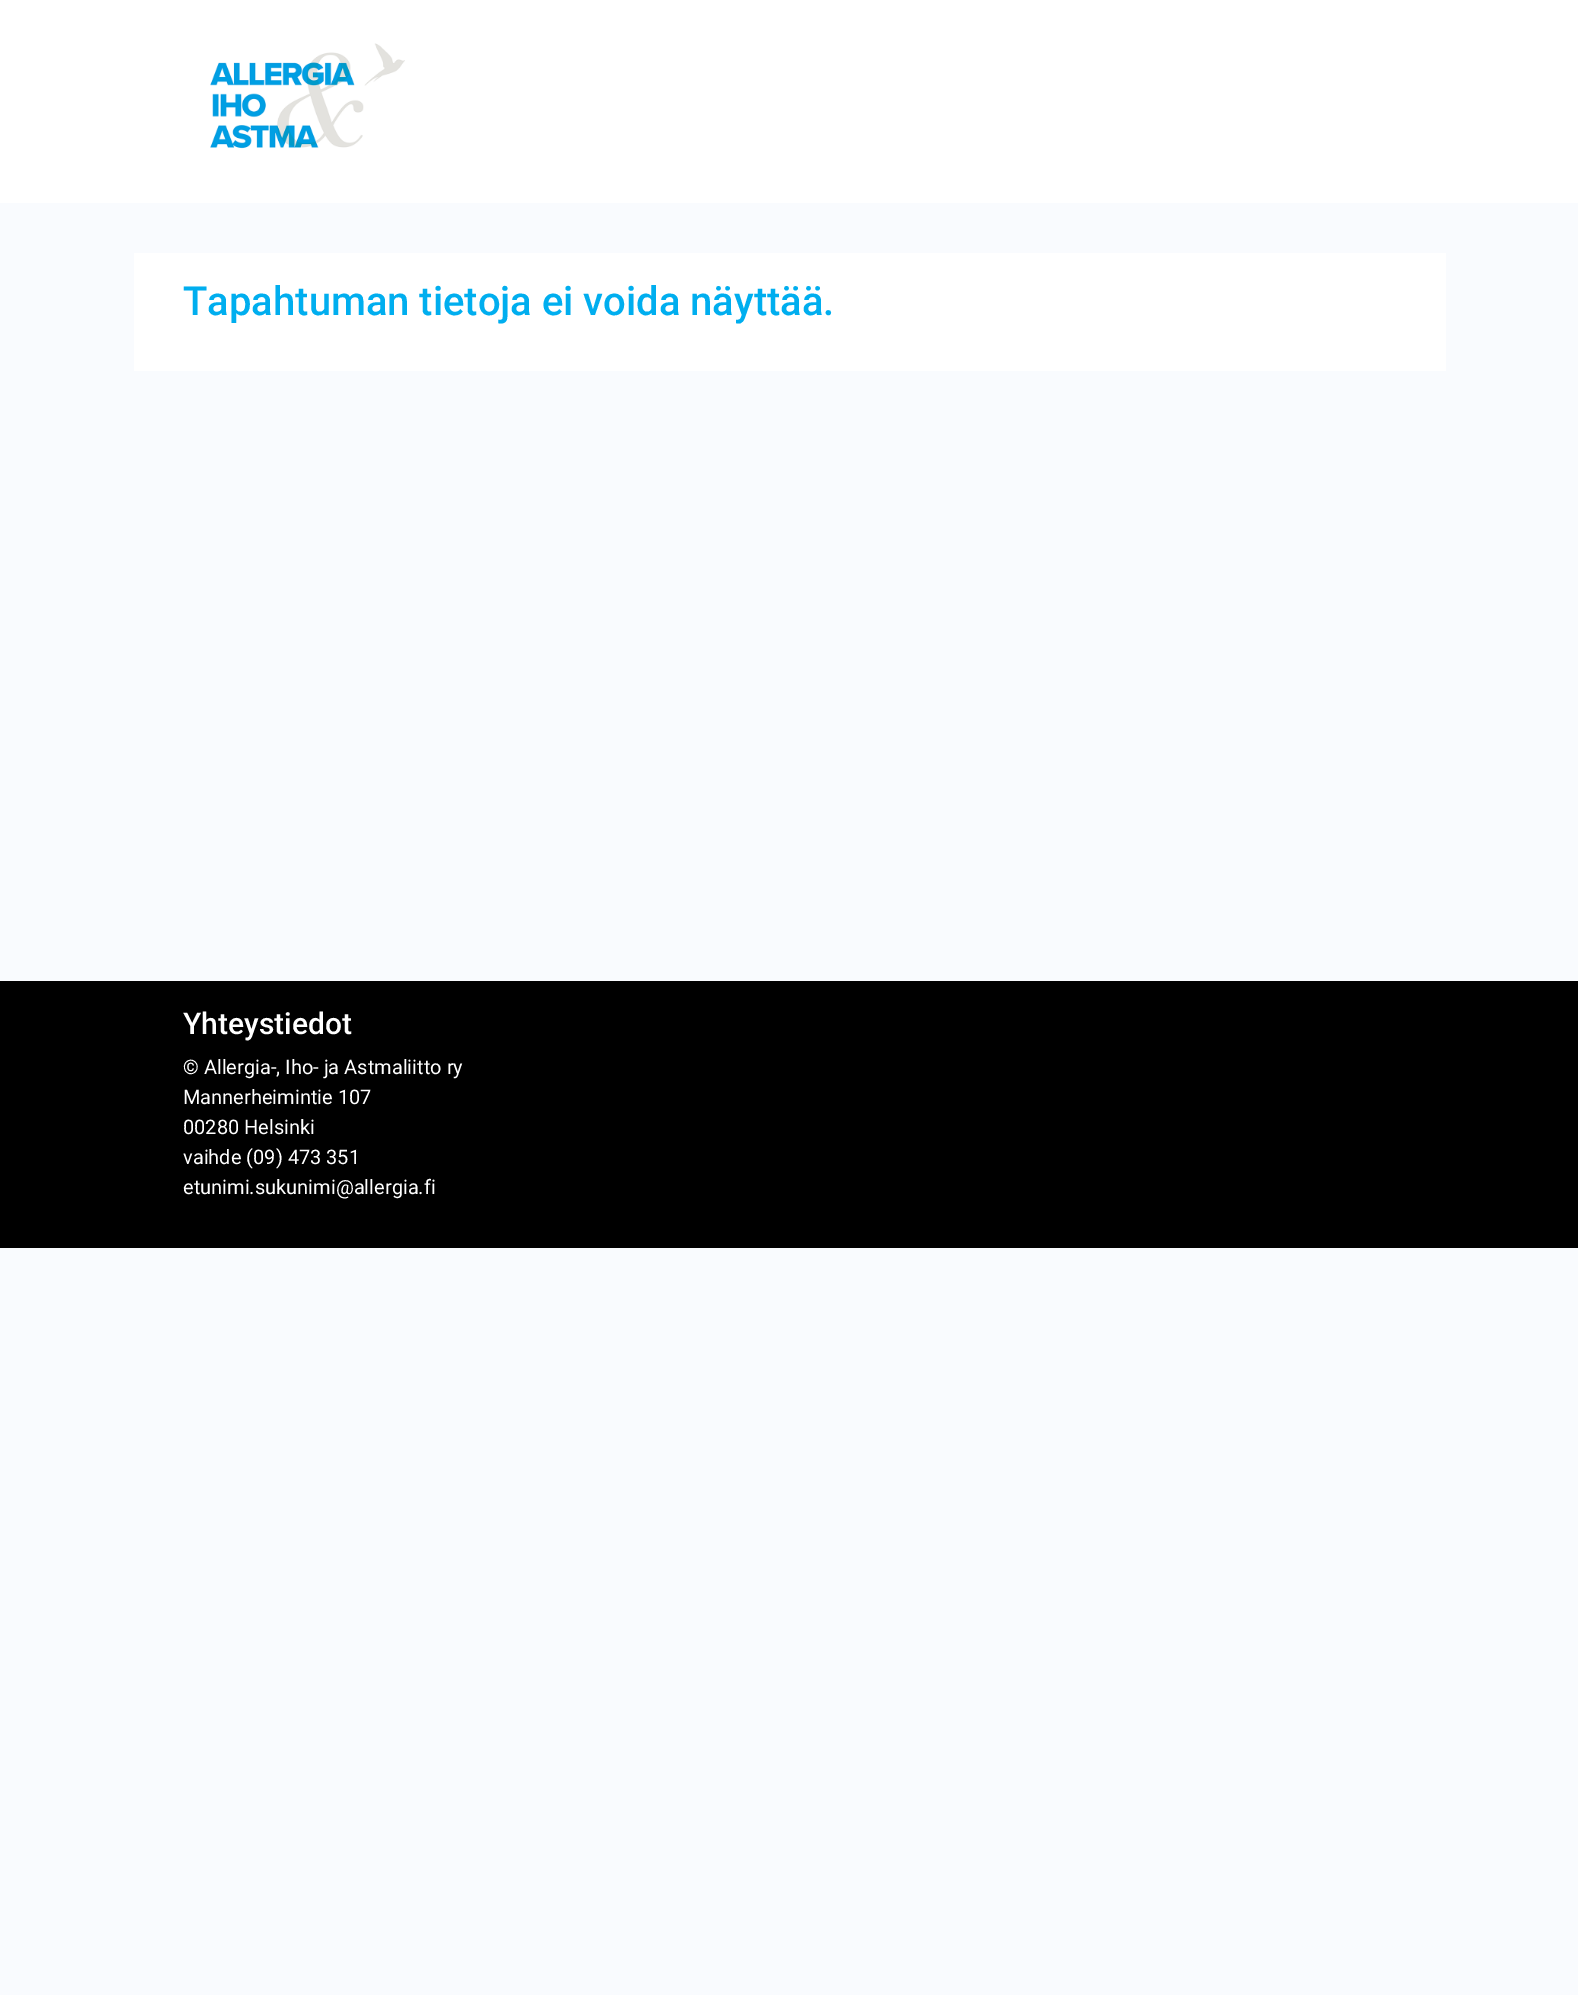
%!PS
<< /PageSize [1578 1995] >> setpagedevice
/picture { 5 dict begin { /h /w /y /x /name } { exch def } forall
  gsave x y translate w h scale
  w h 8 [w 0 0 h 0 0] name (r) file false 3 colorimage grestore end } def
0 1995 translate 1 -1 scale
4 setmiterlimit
0.976 0.984 0.996 setrgbcolor
0 0 1578 1995 rectfill
1 setgray
0 0 1578 203 rectfill
(img1.rgb) 210 43 195 106 picture
134 253 1312 118 rectfill
/Roboto-Medium [40 0 0 -40 0 0] selectfont
0 0.682 0.937 setrgbcolor
183 315 moveto (Tapahtuman tietoja ei voida näyttää.) show
0 setgray
0 981 1578 267 rectfill
/Roboto-Medium [30 0 0 -30 0 0] selectfont
1 setgray
183 1034 moveto (Yhteystiedot) show
/Roboto-Regular [20 0 0 -20 0 0] selectfont
183 1074 moveto (© Allergia-, Iho- ja Astmaliitto ry) show
183 1104 moveto (Mannerheimintie 107) show
183 1134 moveto (00280 Helsinki) show
183 1164 moveto (vaihde \(09\) 473 351) show
183 1194 moveto (etunimi.sukunimi@allergia.fi) show
showpage
